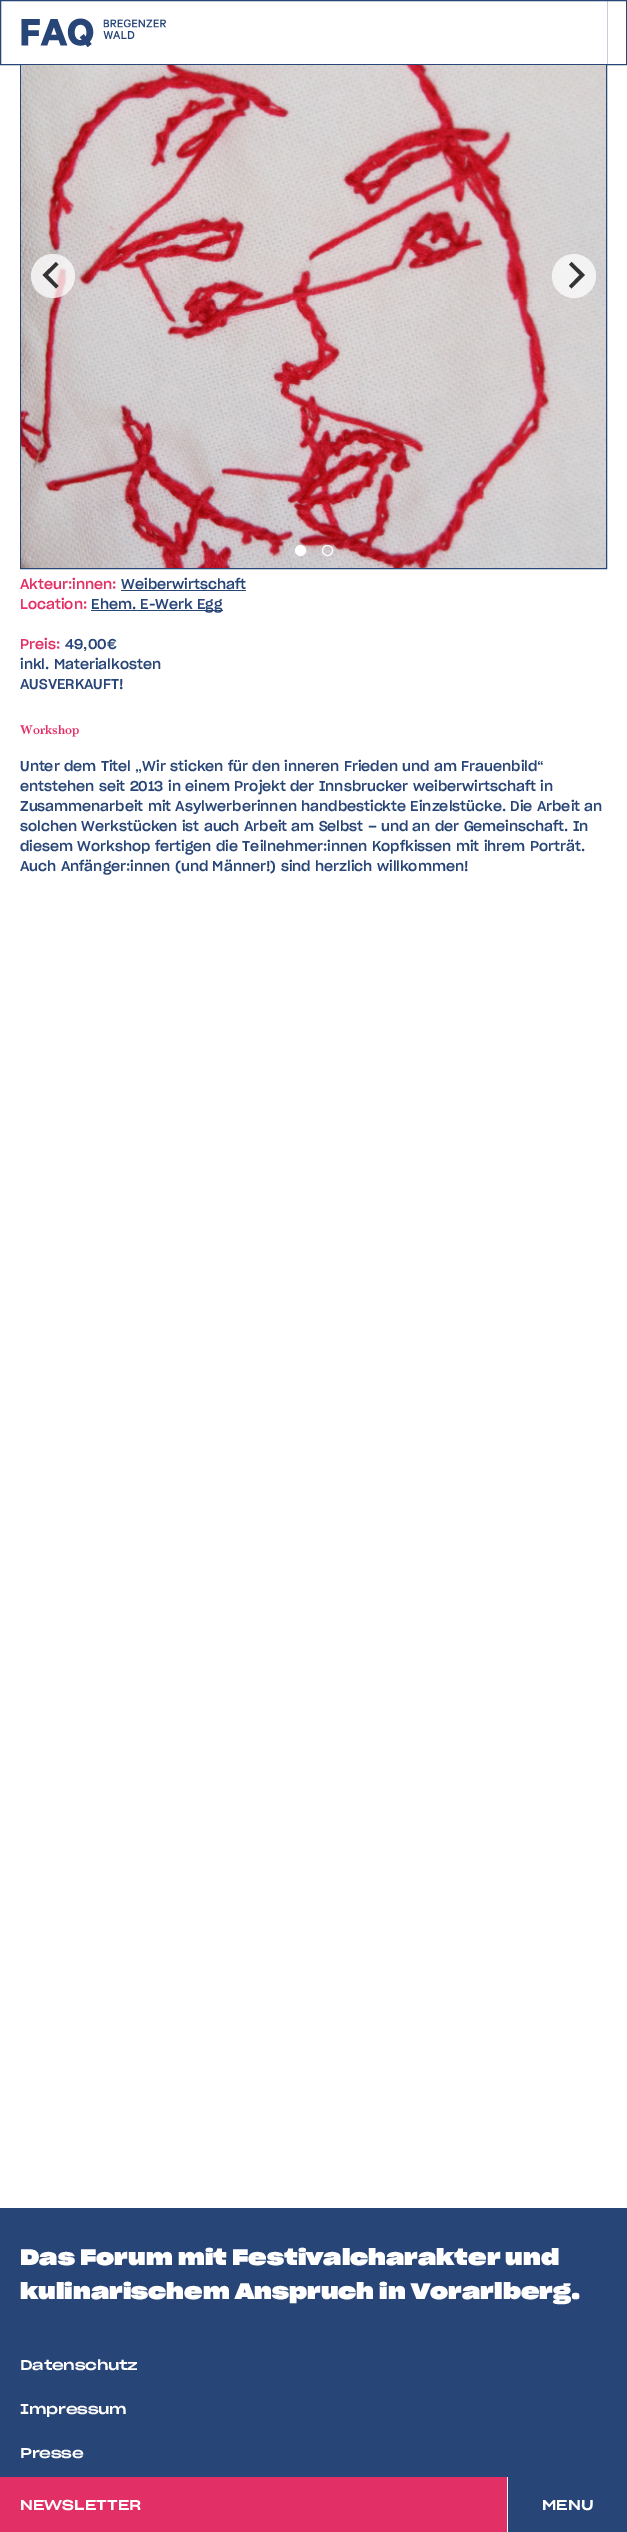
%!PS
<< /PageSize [627 2532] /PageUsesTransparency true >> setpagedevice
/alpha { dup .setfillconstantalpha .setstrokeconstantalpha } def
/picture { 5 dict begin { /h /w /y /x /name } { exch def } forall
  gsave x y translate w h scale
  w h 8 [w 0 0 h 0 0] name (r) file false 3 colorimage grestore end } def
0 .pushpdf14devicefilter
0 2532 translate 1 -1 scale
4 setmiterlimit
1 setgray
0 0 627 2532 rectfill
0.157 0.271 0.471 setrgbcolor
20.5 -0.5 586 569 rectstroke
1 setgray
20 1 587 63 rectfill
0.157 0.271 0.471 setrgbcolor
0.5 0.5 626 64 rectstroke
(img1.rgb) 21 18 145 30 picture
(img2.rgb) 21 65 585 503 picture
0.75 alpha
1 setgray
newpath 53 276 22 0 360 arc closepath fill
1 alpha
0.2 setgray
newpath 42.5 275 moveto 56 288.5 lineto 58.5 286 lineto 48 275 lineto 58.5 264.5 lineto 56 262 lineto closepath fill
0.75 alpha
1 setgray
newpath 574 276 22 0 360 arc closepath fill
1 alpha
0.2 setgray
newpath 585 275 moveto 571.5 262 lineto 569 264.5 lineto 579.5 275 lineto 569 286 lineto 571.5 288.5 lineto closepath fill
1 setgray
newpath 300.5 550.5 5 0 360 arc closepath gsave fill grestore
stroke
newpath 327.5 550.5 5 0 360 arc closepath stroke
/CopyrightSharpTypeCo-Medium [14 0 0 -14 0 0] selectfont
0.886 0.188 0.404 setrgbcolor
20 589 moveto (Akteur:innen:) show
0.157 0.271 0.471 setrgbcolor
121 589 moveto (Weiberwirtschaft) show
121 590 125 1 rectfill
0.886 0.188 0.404 setrgbcolor
20 609 moveto (Location:) show
0.157 0.271 0.471 setrgbcolor
91 610 132 1 rectfill
91 609 moveto (Ehem. E-Werk Egg) show
0.886 0.188 0.404 setrgbcolor
20 649 moveto (Preis:) show
0.157 0.271 0.471 setrgbcolor
65 649 moveto (49,00€) show
20 669 moveto (inkl. Materialkosten) show
20 689 moveto (AUSVERKAUFT!) show
/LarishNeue-SemiBold [12 0 0 -12 0 0] selectfont
0.886 0.188 0.404 setrgbcolor
20 734 moveto (Workshop) show
/CopyrightSharpTypeCo-Medium [14 0 0 -14 0 0] selectfont
0.157 0.271 0.471 setrgbcolor
20 771 moveto (Unter dem Titel „Wir sticken für den inneren Frieden und am Frauenbild“) show
20 791 moveto (entstehen seit 2013 in einem Projekt der Innsbrucker weiberwirtschaft in) show
20 811 moveto (Zusammenarbeit mit Asylwerberinnen handbestickte Einzelstücke. Die Arbeit an) show
20 831 moveto (solchen Werkstücken ist auch Arbeit am Selbst – und an der Gemeinschaft. In) show
20 851 moveto (diesem Workshop fertigen die Teilnehmer:innen Kopfkissen mit ihrem Porträt.) show
20 871 moveto (Auch Anfänger:innen \(und Männer!\) sind herzlich willkommen!) show
0 2208 627 269 rectfill
/CopyrightSharpTypeCo-Bold [22 0 0 -22 0 0] selectfont
1 setgray
20 2265 moveto (Das Forum mit Festivalcharakter und) show
20 2299 moveto (kulinarischem Anspruch in Vorarlberg.) show
/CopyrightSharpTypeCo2-Medium [14 0 0 -14 0 0] selectfont
20 2370 moveto -0.25 0 (Datenschutz) ashow
20 2414 moveto -0.25 0 (Impressum) ashow
20 2458 moveto -0.25 0 (Presse) ashow
0.886 0.188 0.404 setrgbcolor
0 2477 507 55 rectfill
1 setgray
20 2510 moveto (NEWSLETTER) show
0.157 0.271 0.471 setrgbcolor
508 2477 119 55 rectfill
1 setgray
542 2510 moveto (MENU) show
.poppdf14devicefilter showpage
